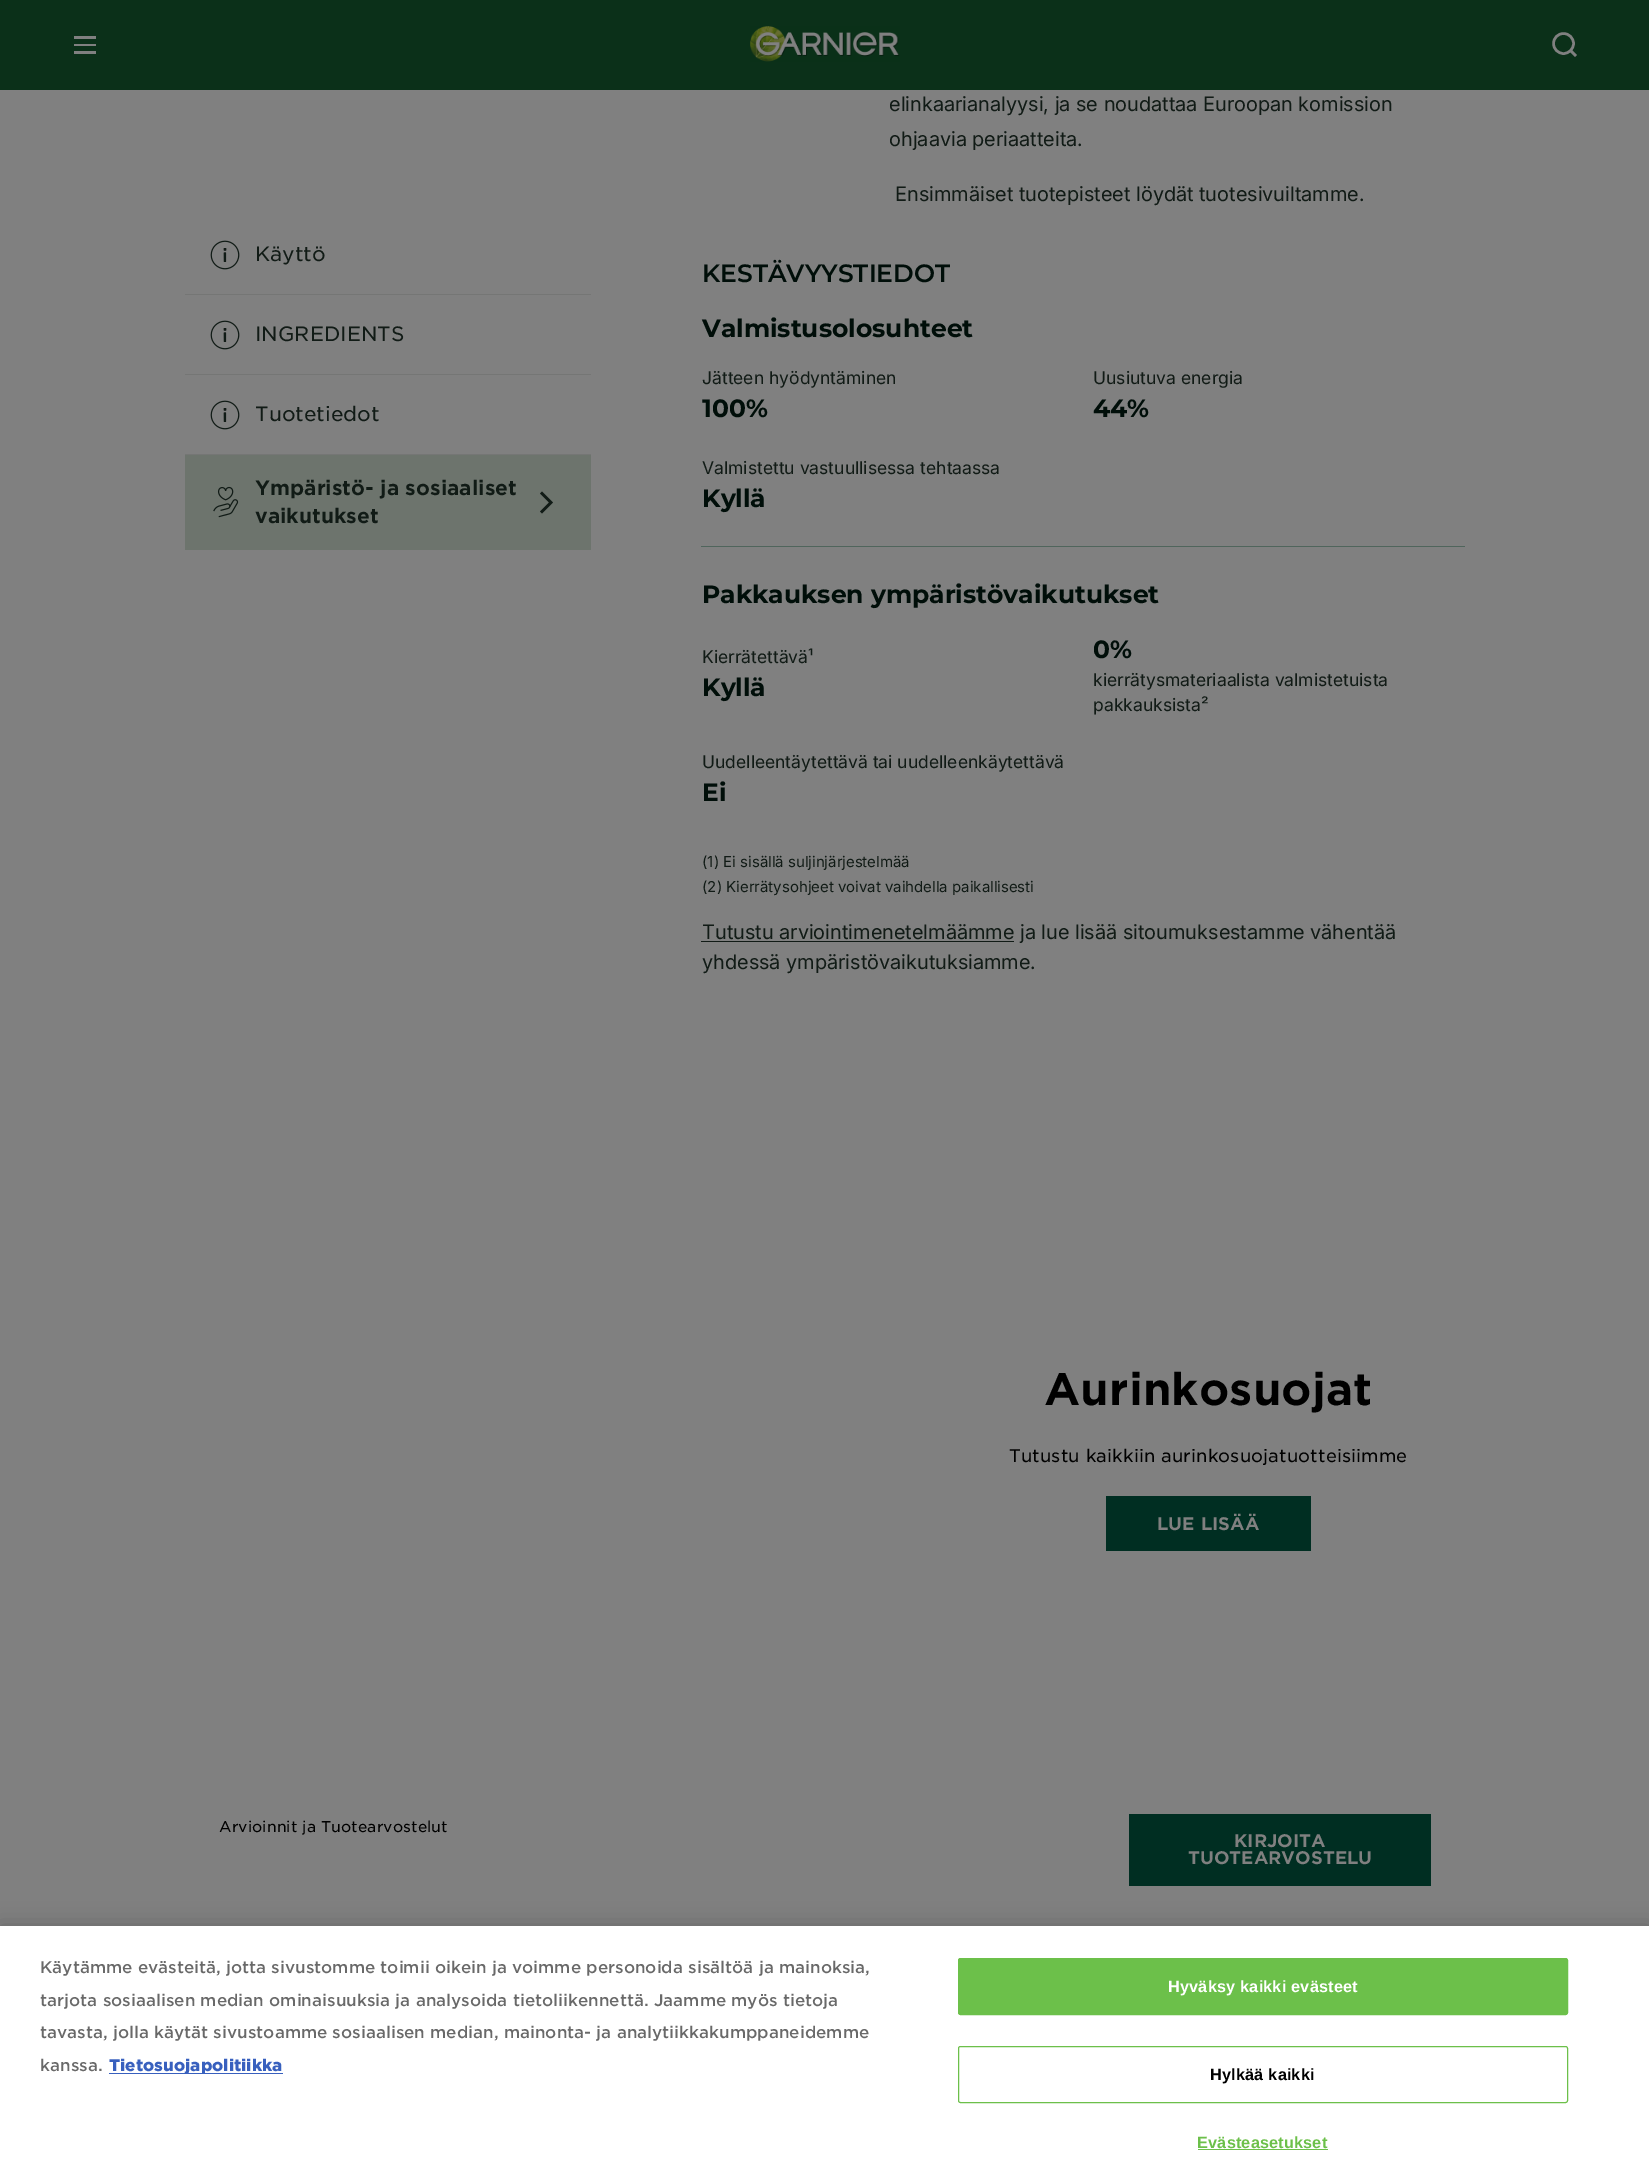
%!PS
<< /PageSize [1649 2176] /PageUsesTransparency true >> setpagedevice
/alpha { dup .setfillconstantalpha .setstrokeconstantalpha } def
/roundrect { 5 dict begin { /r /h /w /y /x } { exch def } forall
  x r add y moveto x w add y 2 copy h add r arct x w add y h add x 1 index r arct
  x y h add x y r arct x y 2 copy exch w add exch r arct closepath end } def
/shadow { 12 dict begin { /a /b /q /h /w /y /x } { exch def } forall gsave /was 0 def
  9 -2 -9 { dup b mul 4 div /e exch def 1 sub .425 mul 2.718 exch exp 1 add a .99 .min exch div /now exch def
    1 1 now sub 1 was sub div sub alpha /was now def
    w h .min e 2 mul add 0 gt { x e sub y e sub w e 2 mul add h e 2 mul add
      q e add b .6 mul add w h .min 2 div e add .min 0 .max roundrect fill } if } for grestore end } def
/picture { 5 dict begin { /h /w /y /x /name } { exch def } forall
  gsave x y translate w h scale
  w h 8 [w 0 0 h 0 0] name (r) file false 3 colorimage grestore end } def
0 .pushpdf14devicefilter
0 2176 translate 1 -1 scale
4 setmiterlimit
0.502 setgray
0 0 1649 2176 rectfill
0.043 0.188 0.098 setrgbcolor
0 0 1649 90 rectfill
0.502 setgray
74 36 22 3 rectfill
74 44 22 2 rectfill
74 51 22 3 rectfill
(img1.rgb) 750 26 150 36 picture
2.5 setlinewidth
newpath 1563.5 43.5 10 0 360 arc closepath stroke
1 setlinejoin
newpath 1570.5 50.5 moveto 1576 56 lineto stroke
0.459 0.463 0.459 setrgbcolor
185 294 406 1 rectfill
(img2.rgb) 210 240 30 30 picture
/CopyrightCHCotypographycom-Light [20 0 0 -20 0 0] selectfont
0.067 0.106 0.086 setrgbcolor
255 261 moveto (Käyttö) show
0.459 0.463 0.459 setrgbcolor
185 374 406 1 rectfill
(img2.rgb) 210 320 30 30 picture
0.067 0.106 0.086 setrgbcolor
255 341 moveto (INGREDIENTS) show
0.459 0.463 0.459 setrgbcolor
185 454 406 1 rectfill
(img2.rgb) 210 400 30 30 picture
0.067 0.106 0.086 setrgbcolor
255 421 moveto (Tuotetiedot) show
0.427 0.455 0.427 setrgbcolor
185 455 406 95 rectfill
(img3.rgb) 213 486 26 32 picture
/CopyrightCHCotypographycom-Regular [20 0 0 -20 0 0] selectfont
0.067 0.106 0.086 setrgbcolor
255 495 moveto (Ympäristö- ja sosiaaliset) show
255 523 moveto (vaikutukset) show
0 setlinejoin
newpath 541 512.5 moveto 551 502.5 lineto 541 492.5 lineto stroke
/Inter-Regular [20 0 0 -20 0 0] selectfont
889 111 moveto (elinkaarianalyysi, ja se noudattaa Euroopan komission) show
889 146 moveto (ohjaavia periaatteita.) show
895 201 moveto (Ensimmäiset tuotepisteet löydät tuotesivuiltamme.) show
/Montserrat-SemiBold [25 0 0 -25 0 0] selectfont
0 0.055 0.035 setrgbcolor
702 282 moveto (KESTÄVYYSTIEDOT) show
/Montserrat-Bold [25 0 0 -25 0 0] selectfont
702 337 moveto (Valmistusolosuhteet) show
/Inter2-Regular [17.5 0 0 -17.5 0 0] selectfont
0.067 0.106 0.086 setrgbcolor
702 384 moveto (Jätteen hyödyntäminen) show
/Montserrat-Bold [25 0 0 -25 0 0] selectfont
0 0.055 0.035 setrgbcolor
702 417 moveto (100%) show
/Inter2-Regular [17.5 0 0 -17.5 0 0] selectfont
0.067 0.106 0.086 setrgbcolor
1093 384 moveto (Uusiutuva energia) show
/Montserrat-Bold [25 0 0 -25 0 0] selectfont
0 0.055 0.035 setrgbcolor
1093 417 moveto (44%) show
/Inter2-Regular [17.5 0 0 -17.5 0 0] selectfont
0.067 0.106 0.086 setrgbcolor
702 474 moveto (Valmistettu vastuullisessa tehtaassa) show
/Montserrat-Bold [25 0 0 -25 0 0] selectfont
0 0.055 0.035 setrgbcolor
702 507 moveto (Kyllä) show
0.314 0.396 0.361 setrgbcolor
701 546 764 1 rectfill
0 0.055 0.035 setrgbcolor
702 603 moveto (Pakkauksen ympäristövaikutukset) show
/Inter2-Regular [17.5 0 0 -17.5 0 0] selectfont
0.067 0.106 0.086 setrgbcolor
702 663 moveto (Kierrätettävä¹) show
/Montserrat-Bold [25 0 0 -25 0 0] selectfont
0 0.055 0.035 setrgbcolor
702 696 moveto (Kyllä) show
1093 658 moveto (0%) show
/Inter2-Regular [17.5 0 0 -17.5 0 0] selectfont
0.067 0.106 0.086 setrgbcolor
1093 686 moveto (kierrätysmateriaalista valmistetuista) show
1093 711 moveto (pakkauksista²) show
702 768 moveto (Uudelleentäytettävä tai uudelleenkäytettävä) show
/Montserrat-Bold [25 0 0 -25 0 0] selectfont
0 0.055 0.035 setrgbcolor
702 801 moveto (Ei) show
/Inter2-Regular [15 0 0 -15 0 0] selectfont
0.067 0.106 0.086 setrgbcolor
702 867 moveto (\(1\) Ei sisällä suljinjärjestelmää) show
702 892 moveto (\(2\) Kierrätysohjeet voivat vaihdella paikallisesti) show
701 941 313 1 rectfill
/Inter-Regular [20 0 0 -20 0 0] selectfont
702 939 moveto (Tutustu arviointimenetelmäämme ja lue lisää sitoumuksestamme vähentää) show
702 969 moveto (yhdessä ympäristövaikutuksiamme.) show
/CopyrightCHCotypographycom-Regular [43.75 0 0 -43.75 0 0] selectfont
0 setgray
1044 1405 moveto 0.1 0 (Aurinkosuojat) ashow
/CopyrightCHCotypographycom-Light [17.5 0 0 -17.5 0 0] selectfont
1009 1462 moveto 0.1 0 (Tutustu kaikkiin aurinkosuojatuotteisiimme) ashow
0 0.18 0.133 setrgbcolor
1106 1496 205 55 rectfill
/CopyrightCHCotypographycom-Regular [17.5 0 0 -17.5 0 0] selectfont
0.502 setgray
1157 1530 moveto 0.1 0 (LUE LISÄÄ) ashow
/CopyrightCHCotypographycom-Light [15 0 0 -15 0 0] selectfont
0 setgray
219 1832 moveto 0.1 0 (Arvioinnit ja Tuotearvostelut) ashow
0 0.18 0.133 setrgbcolor
1129 1814 302 72 rectfill
/CopyrightCHCotypographycom-Regular [17.5 0 0 -17.5 0 0] selectfont
0.502 setgray
1234 1847 moveto (KIRJOITA) show
1188 1864 moveto (TUOTEARVOSTELU) show
0 setgray
0 1926 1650 250 0 11 0.2 shadow
1 setgray
0 1926 1649 250 rectfill
/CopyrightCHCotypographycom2-Light [16.25 0 0 -16.25 0 0] selectfont
0.412 setgray
40 1973 moveto (Käytämme evästeitä, jotta sivustomme toimii oikein ja voimme personoida sisältöä ja mainoksia,) show
40 2006 moveto (tarjota sosiaalisen median ominaisuuksia ja analysoida tietoliikennettä. Jaamme myös tietoja) show
40 2038 moveto (tavasta, jolla käytät sivustoamme sosiaalisen median, mainonta- ja analytiikkakumppaneidemme) show
40 2071 moveto (kanssa.) show
0.22 0.376 0.745 setrgbcolor
109 2073 174 1 rectfill
/CopyrightCHCotypographycom2-Regular [16.25 0 0 -16.25 0 0] selectfont
109 2071 moveto (Tietosuojapolitiikka) show
0.424 0.753 0.29 setrgbcolor
958.5 1958.5 609 56 2 roundrect gsave fill grestore
1 setlinewidth
stroke
/LiberationSans-Bold [16.25 0 0 -16.25 0 0] selectfont
1 setgray
1168 1992 moveto 0.2 0 (Hyväksy kaikki evästeet) ashow
0.424 0.753 0.29 setrgbcolor
958.5 2046.5 609 56 2 roundrect stroke
0 setgray
1210 2080 moveto 0.2 0 (Hylkää kaikki) ashow
0.424 0.753 0.29 setrgbcolor
1197 2148 moveto 0.2 0 (Evästeasetukset) ashow
1198 2149 130 1 rectfill
.poppdf14devicefilter showpage
